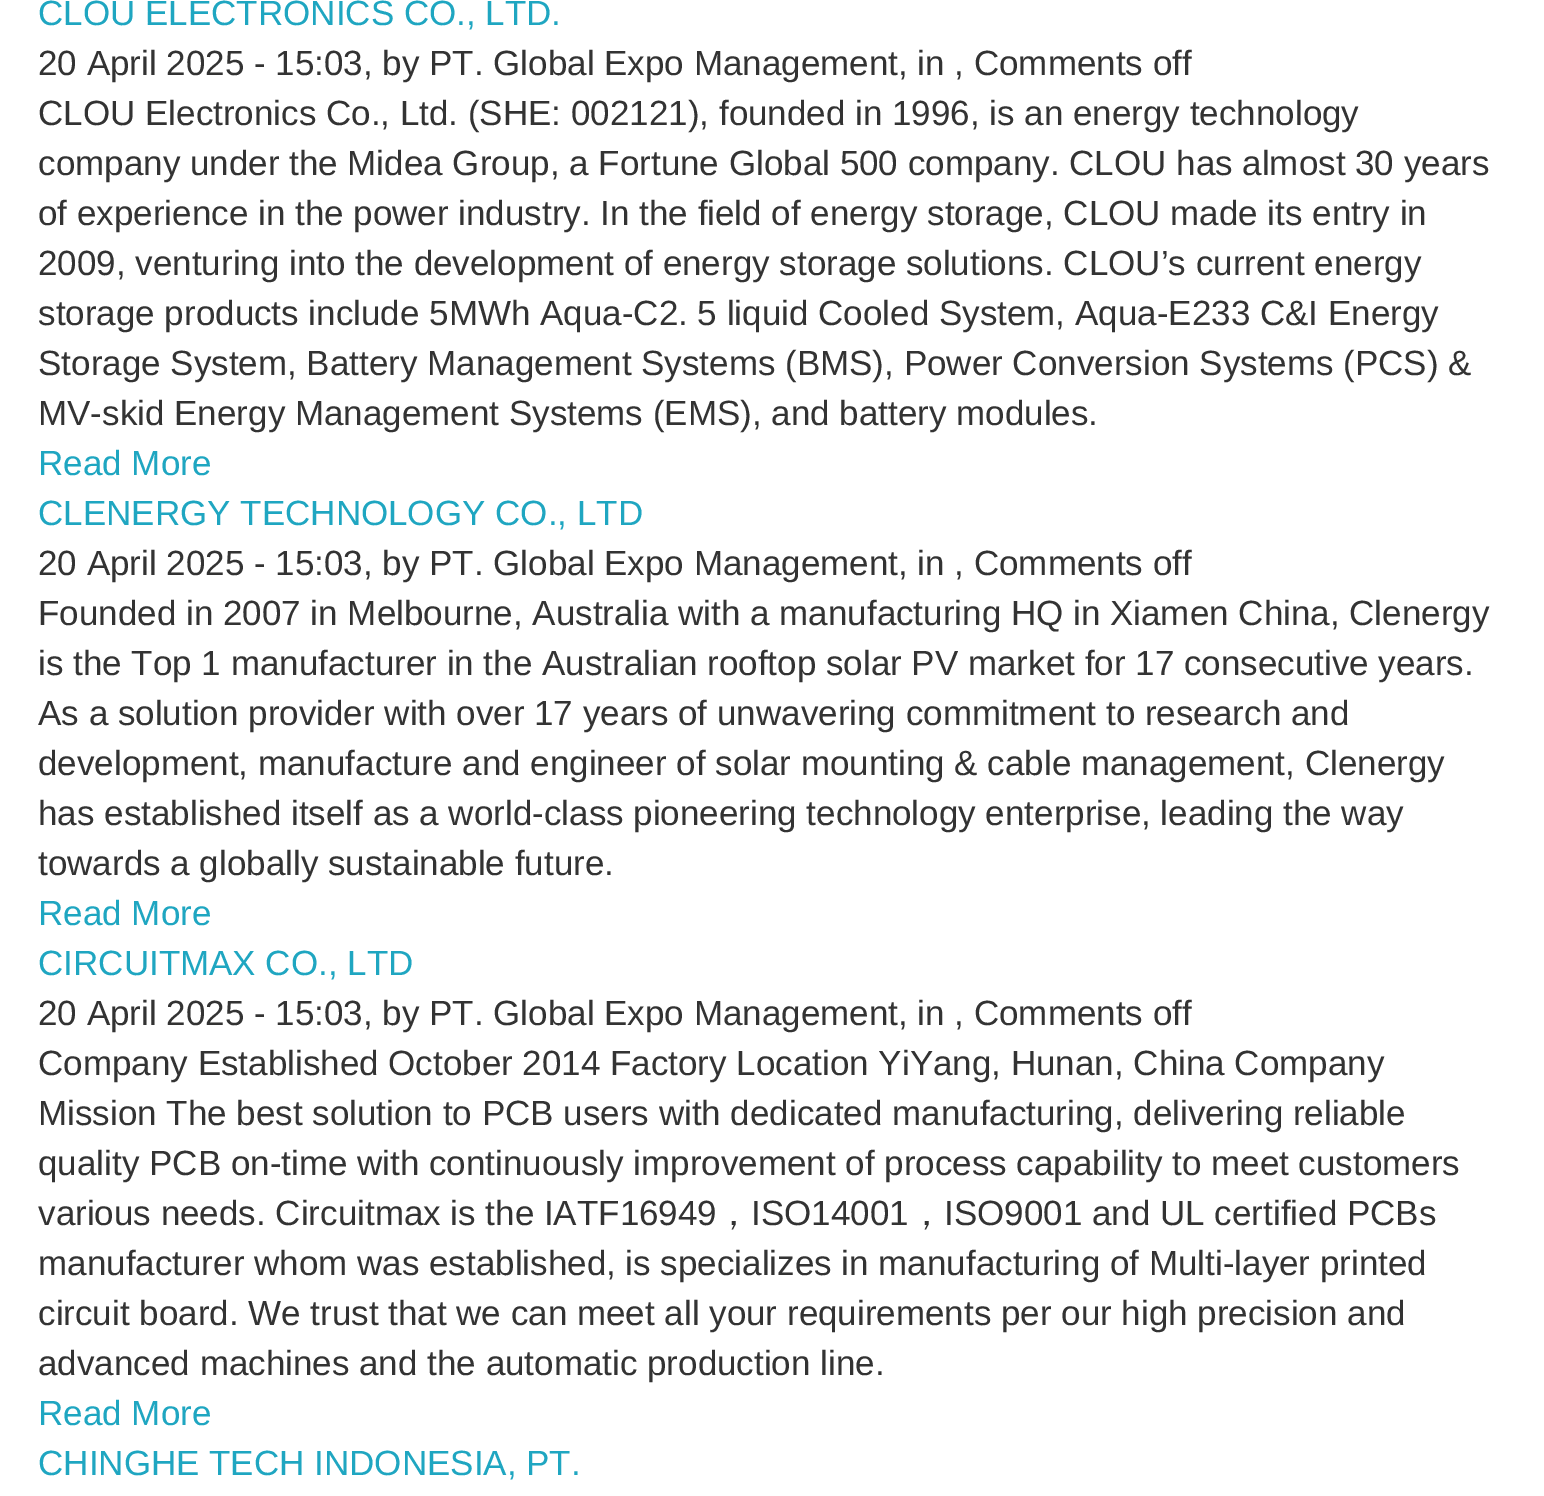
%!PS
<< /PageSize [1544 1496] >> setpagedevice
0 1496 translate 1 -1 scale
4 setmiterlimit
1 setgray
0 0 1544 1496 rectfill
/LiberationSans-Regular [35 0 0 -35 0 0] selectfont
0.122 0.651 0.757 setrgbcolor
38 25 moveto (CLOU ELECTRONICS CO., LTD.) show
0.2 setgray
38 75 moveto (20 April 2025 - 15:03, by PT. Global Expo Management, in , Comments off) show
38 125 moveto (CLOU Electronics Co., Ltd. \(SHE: 002121\), founded in 1996, is an energy technology) show
38 175 moveto (company under the Midea Group, a Fortune Global 500 company. CLOU has almost 30 years) show
38 225 moveto (of experience in the power industry. In the field of energy storage, CLOU made its entry in) show
38 275 moveto (2009, venturing into the development of energy storage solutions. CLOU’s current energy) show
38 325 moveto (storage products include 5MWh Aqua-C2. 5 liquid Cooled System, Aqua-E233 C&I Energy) show
38 375 moveto (Storage System, Battery Management Systems \(BMS\), Power Conversion Systems \(PCS\) &) show
38 425 moveto (MV-skid Energy Management Systems \(EMS\), and battery modules.) show
0.122 0.651 0.757 setrgbcolor
38 475 moveto (Read More) show
38 525 moveto (CLENERGY TECHNOLOGY CO., LTD) show
0.2 setgray
38 575 moveto (20 April 2025 - 15:03, by PT. Global Expo Management, in , Comments off) show
38 625 moveto (Founded in 2007 in Melbourne, Australia with a manufacturing HQ in Xiamen China, Clenergy) show
38 675 moveto (is the Top 1 manufacturer in the Australian rooftop solar PV market for 17 consecutive years.) show
38 725 moveto (As a solution provider with over 17 years of unwavering commitment to research and) show
38 775 moveto (development, manufacture and engineer of solar mounting & cable management, Clenergy) show
38 825 moveto (has established itself as a world-class pioneering technology enterprise, leading the way) show
38 875 moveto (towards a globally sustainable future.) show
0.122 0.651 0.757 setrgbcolor
38 925 moveto (Read More) show
38 975 moveto (CIRCUITMAX CO., LTD) show
0.2 setgray
38 1025 moveto (20 April 2025 - 15:03, by PT. Global Expo Management, in , Comments off) show
38 1075 moveto (Company Established October 2014 Factory Location YiYang, Hunan, China Company) show
38 1125 moveto (Mission The best solution to PCB users with dedicated manufacturing, delivering reliable) show
38 1175 moveto (quality PCB on-time with continuously improvement of process capability to meet customers) show
38 1225 moveto (various needs. Circuitmax is the IATF16949) show
/WenQuanYiZenHei-Medium [35 0 0 -35 0 0] selectfont
716 1225 moveto (，) show
/LiberationSans-Regular [35 0 0 -35 0 0] selectfont
751 1225 moveto (ISO14001) show
/WenQuanYiZenHei-Medium [35 0 0 -35 0 0] selectfont
909 1225 moveto (，) show
/LiberationSans-Regular [35 0 0 -35 0 0] selectfont
944 1225 moveto (ISO9001 and UL certified PCBs) show
38 1275 moveto (manufacturer whom was established, is specializes in manufacturing of Multi-layer printed) show
38 1325 moveto (circuit board. We trust that we can meet all your requirements per our high precision and) show
38 1375 moveto (advanced machines and the automatic production line.) show
0.122 0.651 0.757 setrgbcolor
38 1425 moveto (Read More) show
38 1475 moveto (CHINGHE TECH INDONESIA, PT.) show
showpage
